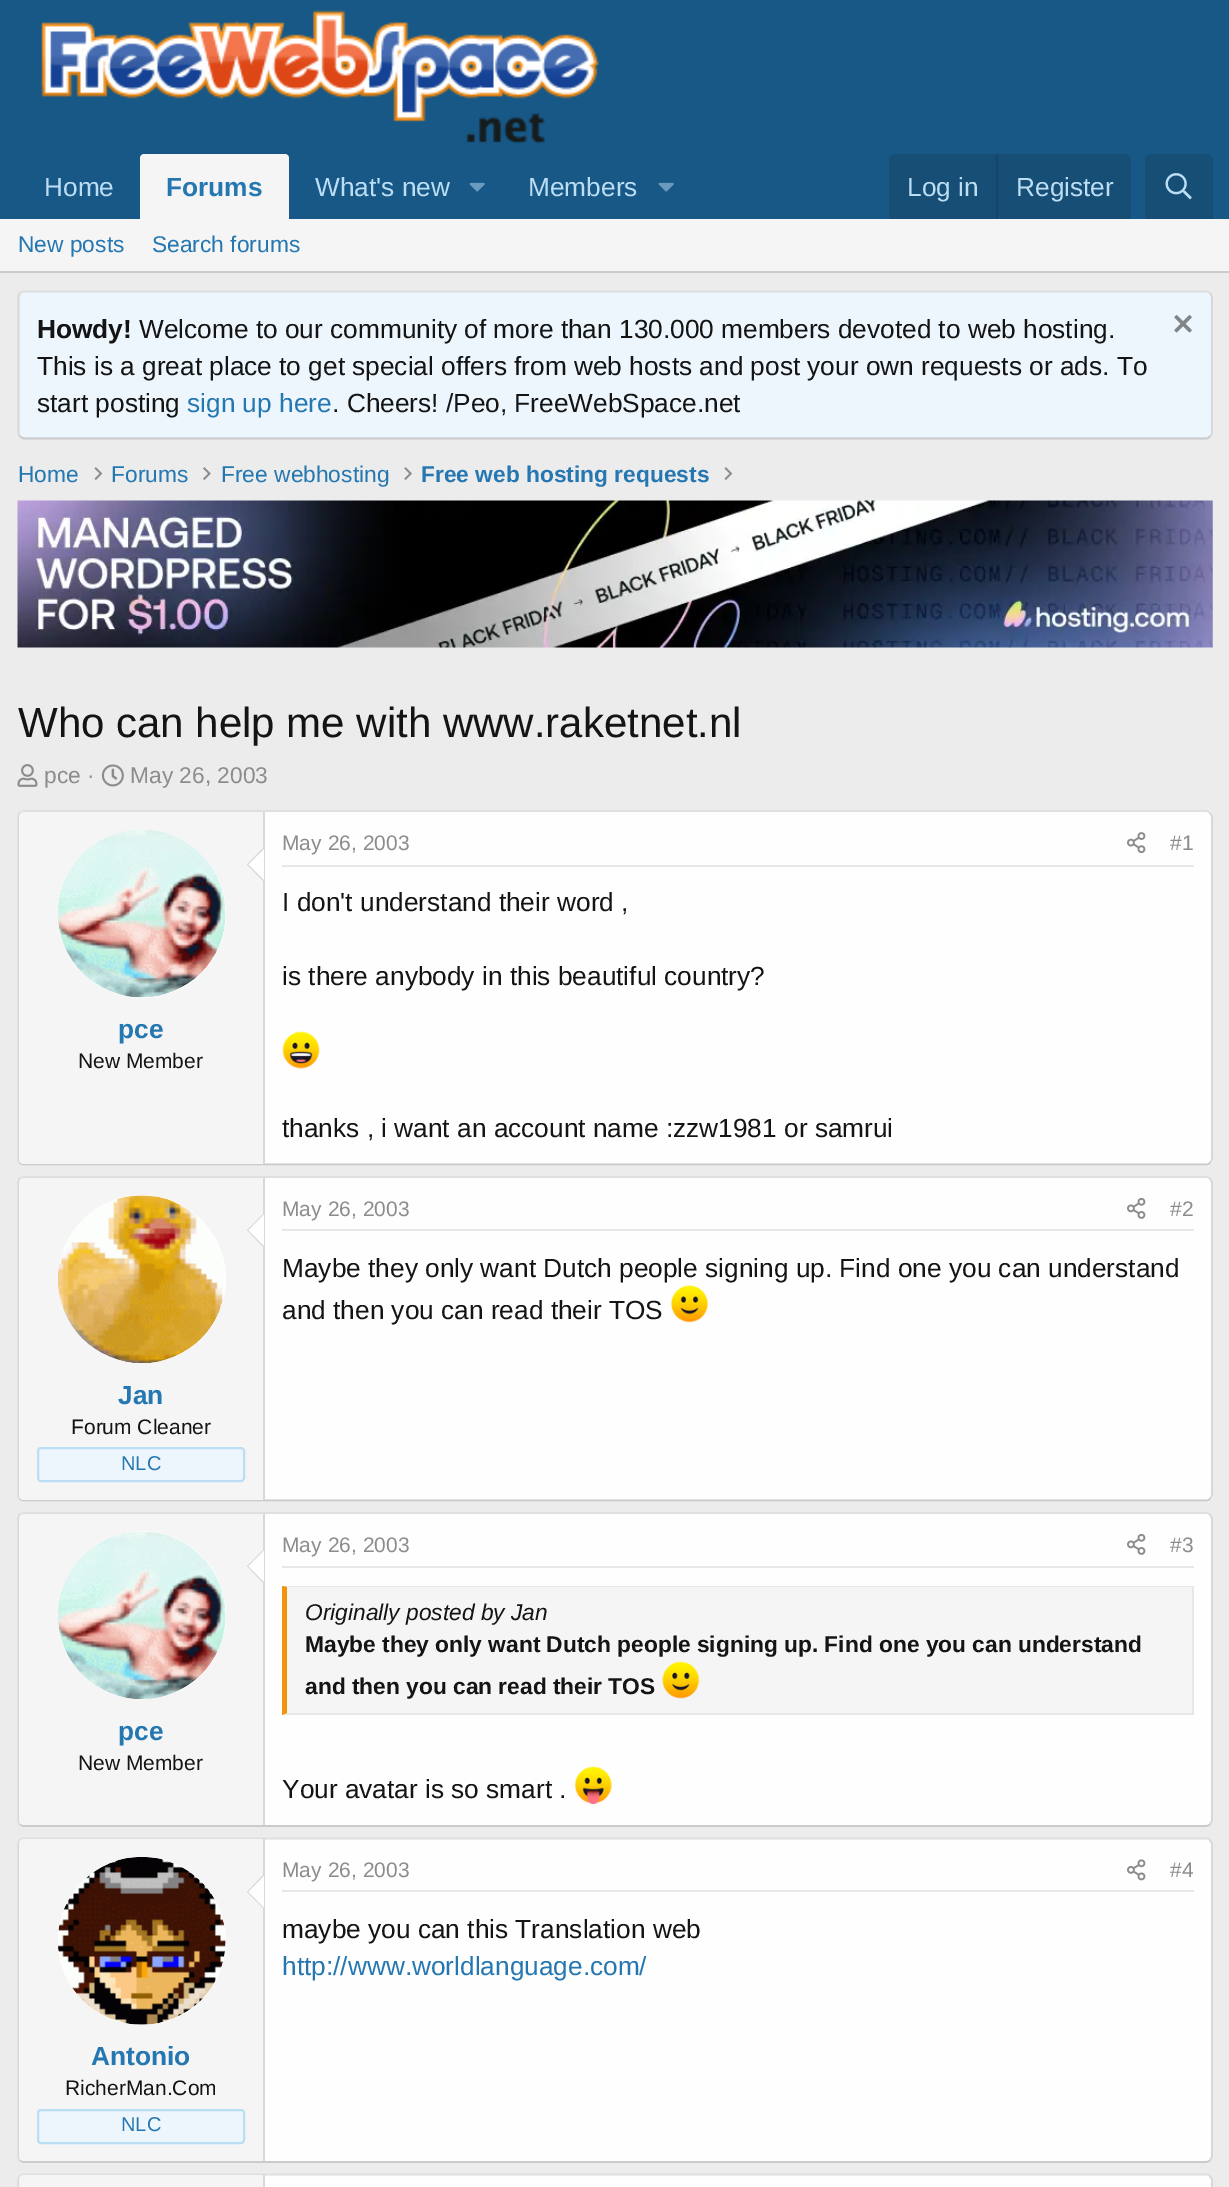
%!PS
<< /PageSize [1229 2187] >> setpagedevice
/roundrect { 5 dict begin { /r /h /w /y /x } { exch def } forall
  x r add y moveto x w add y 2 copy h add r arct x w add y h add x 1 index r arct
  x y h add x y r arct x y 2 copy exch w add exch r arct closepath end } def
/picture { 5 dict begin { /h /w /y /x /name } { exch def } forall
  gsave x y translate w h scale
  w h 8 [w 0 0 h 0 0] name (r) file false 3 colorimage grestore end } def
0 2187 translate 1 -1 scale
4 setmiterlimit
0.925 setgray
0 0 1229 2187 rectfill
0.094 0.345 0.525 setrgbcolor
0 0 1229 219 rectfill
(img1.rgb) 41 10 558 134 picture
/LiberationSans-Regular [26.25 0 0 -26.25 0 0] selectfont
0.737 0.871 0.961 setrgbcolor
44 196 moveto (Home) show
0.961 setgray
newpath 144 154 moveto 285 154 lineto 287 154 289 156 289 158 curveto 289 219 lineto 140 219 lineto 140 158 lineto 140 156 142 154 144 154 curveto closepath fill
/LiberationSans-Bold [26.25 0 0 -26.25 0 0] selectfont
0.145 0.467 0.694 setrgbcolor
166 196 moveto (Forums) show
/LiberationSans-Regular [26.25 0 0 -26.25 0 0] selectfont
0.737 0.871 0.961 setrgbcolor
315 196 moveto (What's new) show
(img2.rgb) 469 182 16 10 picture
528 196 moveto (Members) show
(img2.rgb) 658 182 16 10 picture
0.09 0.306 0.459 setrgbcolor
newpath 896 154 moveto 1124 154 lineto 1128 154 1131 157 1131 161 curveto 1131 219 lineto 889 219 lineto 889 161 lineto 889 157 892 154 896 154 curveto closepath fill
0.737 0.871 0.961 setrgbcolor
907 196 moveto (Log in) show
0.09 0.271 0.4 setrgbcolor
996 154 2 65 rectfill
0.737 0.871 0.961 setrgbcolor
1016 196 moveto (Register) show
0.09 0.306 0.459 setrgbcolor
newpath 1152 154 moveto 1206 154 lineto 1210 154 1213 157 1213 161 curveto 1213 219 lineto 1145 219 lineto 1145 161 lineto 1145 157 1148 154 1152 154 curveto closepath fill
(img3.rgb) 1165 173 27 27 picture
0.961 setgray
0 219 1229 52 rectfill
0.796 setgray
0 271 1229 2 rectfill
/LiberationSans-Regular [22.75 0 0 -22.75 0 0] selectfont
0.145 0.467 0.694 setrgbcolor
18 252 moveto (New posts) show
152 252 moveto (Search forums) show
0.929 0.965 0.992 setrgbcolor
18 291 1195 148 7 roundrect fill
0.875 setgray
1.8 setlinewidth
newpath 20 293 moveto 21.5 292 23 291.5 24.5 291.5 curveto 1206 291.5 lineto 1207.5 291.5 1209 292 1210 293 curveto stroke
0.847 setgray
newpath 1210 293 moveto 1211 294.5 1212 296 1212 297.5 curveto 1212 432 lineto 1212 434 1211 435.5 1210 436.5 curveto stroke
0.796 setgray
newpath 1210 436.5 moveto 1209 437.5 1207.5 438.5 1206 438.5 curveto 24.5 438.5 lineto 23 438.5 21.5 437.5 20 436.5 curveto stroke
0.847 setgray
newpath 20 436.5 moveto 19 435.5 18.5 434 18.5 432 curveto 18.5 297.5 lineto 18.5 296 19 294.5 20 293 curveto stroke
/LiberationSans-Bold [26.25 0 0 -26.25 0 0] selectfont
0.078 setgray
37 338 moveto (Howdy!) show
/LiberationSans-Regular [26.25 0 0 -26.25 0 0] selectfont
139 338 moveto (Welcome to our community of more than 130.000 members devoted to web hosting.) show
(img4.rgb) 1174 315 18 18 picture
37 375 moveto (This is a great place to get special offers from web hosts and post your own requests or ads. To) show
37 412 moveto (start posting) show
0.145 0.467 0.694 setrgbcolor
187 412 moveto (sign up here) show
0.078 setgray
332 412 moveto (. Cheers! /Peo, FreeWebSpace.net) show
/LiberationSans-Regular [22.75 0 0 -22.75 0 0] selectfont
0.145 0.467 0.694 setrgbcolor
18 482 moveto (Home) show
(img5.rgb) 94 467 9 13 picture
111 482 moveto (Forums) show
(img6.rgb) 203 467 8 13 picture
221 482 moveto (Free webhosting) show
(img7.rgb) 404 467 8 13 picture
/LiberationSans-Bold [22.75 0 0 -22.75 0 0] selectfont
421 482 moveto (Free web hosting requests) show
(img5.rgb) 724 467 9 13 picture
(img8.rgb) 17 500 1196 148 picture
/LiberationSans-Regular [42 0 0 -42 0 0] selectfont
0.078 setgray
18 737 moveto (Who can help me with www.raketnet.nl) show
(img9.rgb) 17 764 21 23 picture
/LiberationSans-Regular [22.75 0 0 -22.75 0 0] selectfont
0.549 setgray
44 783 moveto (pce ·) show
(img10.rgb) 101 764 23 23 picture
130 783 moveto (May 26, 2003) show
0.996 setgray
18 810 1195 356 7 roundrect fill
0.875 setgray
newpath 20 813 moveto 21.5 812 23 811 24.5 811 curveto 1206 811 lineto 1207.5 811 1209 812 1210 813 curveto stroke
0.847 setgray
newpath 1210 813 moveto 1211 814 1212 815.5 1212 817 curveto 1212 1158.5 lineto 1212 1160 1211 1161.5 1210 1163 curveto stroke
0.796 setgray
newpath 1210 1163 moveto 1209 1164 1207.5 1164.5 1206 1164.5 curveto 24.5 1164.5 lineto 23 1164.5 21.5 1164 20 1163 curveto stroke
0.847 setgray
newpath 20 1163 moveto 19 1161.5 18.5 1160 18.5 1158.5 curveto 18.5 817 lineto 18.5 815.5 19 814 20 813 curveto stroke
0.961 setgray
newpath 24 812 moveto 264 812 lineto 264 1164 lineto 24 1164 lineto 21 1164 19 1162 19 1159 curveto 19 817 lineto 19 814 21 812 24 812 curveto closepath fill
0.847 setgray
263 812 2 352 rectfill
0.996 setgray
newpath 142 914 84 0 360 arc closepath fill
(img11.rgb) 58 830 168 168 picture
0.847 setgray
newpath 264 847 moveto 264 882 lineto 247 864.5 lineto closepath fill
0.996 setgray
newpath 264 849 moveto 264 880 lineto 248.5 864.5 lineto closepath fill
/LiberationSans-Bold [26.25 0 0 -26.25 0 0] selectfont
0.145 0.467 0.694 setrgbcolor
118 1038 moveto (pce) show
/LiberationSans-Regular [21 0 0 -21 0 0] selectfont
0.078 setgray
78 1068 moveto (New Member) show
0.906 setgray
282 865 912 2 rectfill
0.549 setgray
282 850 moveto (May 26, 2003) show
(img12.rgb) 1127 832 19 22 picture
1170 850 moveto (#1) show
/LiberationSans-Regular [26.25 0 0 -26.25 0 0] selectfont
0.078 setgray
282 911 moveto (I don't understand their word ,) show
282 985 moveto (is there anybody in this beautiful country?) show
(img13.rgb) 282 1031 38 38 picture
282 1137 moveto (thanks , i want an account name :zzw1981 or samrui) show
0.996 setgray
18 1176 1195 326 7 roundrect fill
0.875 setgray
newpath 20 1178.5 moveto 21.5 1177.5 23 1177 24.5 1177 curveto 1206 1177 lineto 1207.5 1177 1209 1177.5 1210 1178.5 curveto stroke
0.847 setgray
newpath 1210 1178.5 moveto 1211 1180 1212 1181.5 1212 1183 curveto 1212 1494.5 lineto 1212 1496 1211 1497.5 1210 1499 curveto stroke
0.796 setgray
newpath 1210 1499 moveto 1209 1500 1207.5 1500.5 1206 1500.5 curveto 24.5 1500.5 lineto 23 1500.5 21.5 1500 20 1499 curveto stroke
0.847 setgray
newpath 20 1499 moveto 19 1497.5 18.5 1496 18.5 1494.5 curveto 18.5 1183 lineto 18.5 1181.5 19 1180 20 1178.5 curveto stroke
0.906 setgray
282 1229 912 2 rectfill
/LiberationSans-Regular [21 0 0 -21 0 0] selectfont
0.549 setgray
282 1216 moveto (May 26, 2003) show
(img14.rgb) 1127 1197 19 22 picture
1170 1216 moveto (#2) show
/LiberationSans-Regular [26.25 0 0 -26.25 0 0] selectfont
0.078 setgray
282 1277 moveto (Maybe they only want Dutch people signing up. Find one you can understand) show
282 1319 moveto (and then you can read their TOS) show
(img15.rgb) 671 1285 37 38 picture
0.961 setgray
newpath 24 1178 moveto 264 1178 lineto 264 1500 lineto 24 1500 lineto 21 1500 19 1498 19 1495 curveto 19 1183 lineto 19 1180 21 1178 24 1178 curveto closepath fill
0.847 setgray
263 1178 2 322 rectfill
0.996 setgray
newpath 142 1279 84 0 360 arc closepath fill
(img16.rgb) 58 1195 165 168 picture
0.847 setgray
newpath 264 1213 moveto 264 1248 lineto 247 1230 lineto closepath fill
0.996 setgray
newpath 264 1214.5 moveto 264 1246 lineto 248.5 1230 lineto closepath fill
/LiberationSans-Bold [26.25 0 0 -26.25 0 0] selectfont
0.145 0.467 0.694 setrgbcolor
118 1404 moveto (Jan) show
/LiberationSans-Regular [21 0 0 -21 0 0] selectfont
0.078 setgray
71 1434 moveto (Forum Cleaner) show
0.929 0.965 0.992 setrgbcolor
38 1448 206 33 3 roundrect gsave fill grestore
0.737 0.871 0.961 setrgbcolor
2 setlinewidth
stroke
/LiberationSans-Regular [20 0 0 -20 0 0] selectfont
0.145 0.467 0.694 setrgbcolor
121 1470 moveto (NLC) show
0.996 setgray
18 1512 1195 315 7 roundrect fill
0.875 setgray
1.8 setlinewidth
newpath 20 1514.5 moveto 21.5 1513.5 23 1513 24.5 1513 curveto 1206 1513 lineto 1207.5 1513 1209 1513.5 1210 1514.5 curveto stroke
0.847 setgray
newpath 1210 1514.5 moveto 1211 1516 1212 1517.5 1212 1519 curveto 1212 1820 lineto 1212 1821.5 1211 1823 1210 1824.5 curveto stroke
0.796 setgray
newpath 1210 1824.5 moveto 1209 1825.5 1207.5 1826 1206 1826 curveto 24.5 1826 lineto 23 1826 21.5 1825.5 20 1824.5 curveto stroke
0.847 setgray
newpath 20 1824.5 moveto 19 1823 18.5 1821.5 18.5 1820 curveto 18.5 1519 lineto 18.5 1517.5 19 1516 20 1514.5 curveto stroke
0.961 setgray
newpath 24 1514 moveto 264 1514 lineto 264 1825 lineto 24 1825 lineto 21 1825 19 1823 19 1820 curveto 19 1519 lineto 19 1516 21 1514 24 1514 curveto closepath fill
0.847 setgray
263 1514 2 311 rectfill
0.996 setgray
newpath 142 1615 84 0 360 arc closepath fill
(img17.rgb) 58 1531 168 168 picture
0.847 setgray
newpath 264 1549 moveto 264 1584 lineto 247 1566 lineto closepath fill
0.996 setgray
newpath 264 1550.5 moveto 264 1582 lineto 248.5 1566 lineto closepath fill
/LiberationSans-Bold [26.25 0 0 -26.25 0 0] selectfont
0.145 0.467 0.694 setrgbcolor
118 1740 moveto (pce) show
/LiberationSans-Regular [21 0 0 -21 0 0] selectfont
0.078 setgray
78 1770 moveto (New Member) show
0.906 setgray
282 1566 912 2 rectfill
0.549 setgray
282 1552 moveto (May 26, 2003) show
(img14.rgb) 1127 1533 19 22 picture
1170 1552 moveto (#3) show
0.961 setgray
287 1587 905 126 rectfill
0.906 setgray
newpath 282 1586 moveto 1194 1586 lineto 1192 1587 lineto 287 1587 lineto closepath fill
1192 1586 2 129 rectfill
newpath 1194 1715 moveto 282 1715 lineto 287 1713 lineto 1192 1713 lineto closepath fill
0.949 0.576 0.051 setrgbcolor
newpath 282 1715 moveto 282 1586 lineto 287 1587 lineto 287 1713 lineto closepath fill
/LiberationSans-Italic [22.75 0 0 -22.75 0 0] selectfont
0.078 setgray
305 1620 moveto (Originally posted by Jan) show
/LiberationSans-Bold [22.75 0 0 -22.75 0 0] selectfont
305 1652 moveto (Maybe they only want Dutch people signing up. Find one you can understand) show
305 1694 moveto (and then you can read their TOS) show
(img18.rgb) 662 1661 38 38 picture
/LiberationSans-Regular [26.25 0 0 -26.25 0 0] selectfont
282 1798 moveto (Your avatar is so smart .) show
(img19.rgb) 574 1766 38 39 picture
0.996 setgray
18 1838 1195 325 7 roundrect fill
0.875 setgray
newpath 20 1840 moveto 21.5 1839 23 1838.5 24.5 1838.5 curveto 1206 1838.5 lineto 1207.5 1838.5 1209 1839 1210 1840 curveto stroke
0.847 setgray
newpath 1210 1840 moveto 1211 1841.5 1212 1843 1212 1844.5 curveto 1212 2156 lineto 1212 2157.5 1211 2159 1210 2160.5 curveto stroke
0.796 setgray
newpath 1210 2160.5 moveto 1209 2161.5 1207.5 2162 1206 2162 curveto 24.5 2162 lineto 23 2162 21.5 2161.5 20 2160.5 curveto stroke
0.847 setgray
newpath 20 2160.5 moveto 19 2159 18.5 2157.5 18.5 2156 curveto 18.5 1844.5 lineto 18.5 1843 19 1841.5 20 1840 curveto stroke
0.906 setgray
282 1890 912 2 rectfill
/LiberationSans-Regular [21 0 0 -21 0 0] selectfont
0.549 setgray
282 1877 moveto (May 26, 2003) show
(img20.rgb) 1127 1859 19 22 picture
1170 1877 moveto (#4) show
/LiberationSans-Regular [26.25 0 0 -26.25 0 0] selectfont
0.078 setgray
282 1938 moveto (maybe you can this Translation web) show
0.145 0.467 0.694 setrgbcolor
282 1975 moveto (http://www.worldlanguage.com/) show
0.961 setgray
newpath 24 1839 moveto 264 1839 lineto 264 2161 lineto 24 2161 lineto 21 2161 19 2159 19 2156 curveto 19 1844 lineto 19 1841 21 1839 24 1839 curveto closepath fill
0.847 setgray
263 1839 2 322 rectfill
0.996 setgray
newpath 142 1941 84 0 360 arc closepath fill
(img21.rgb) 58 1857 168 168 picture
0.847 setgray
newpath 264 1874 moveto 264 1909 lineto 247 1892 lineto closepath fill
0.996 setgray
newpath 264 1876 moveto 264 1907.5 lineto 248.5 1892 lineto closepath fill
/LiberationSans-Bold [26.25 0 0 -26.25 0 0] selectfont
0.145 0.467 0.694 setrgbcolor
91 2065 moveto (Antonio) show
/LiberationSans-Regular [21 0 0 -21 0 0] selectfont
0.078 setgray
65 2095 moveto (RicherMan.Com) show
0.929 0.965 0.992 setrgbcolor
38 2110 206 33 3 roundrect gsave fill grestore
0.737 0.871 0.961 setrgbcolor
2 setlinewidth
stroke
/LiberationSans-Regular [20 0 0 -20 0 0] selectfont
0.145 0.467 0.694 setrgbcolor
121 2131 moveto (NLC) show
0.996 setgray
18 2174 1195 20 7 roundrect fill
0.875 setgray
1.8 setlinewidth
newpath 20 2176 moveto 21.5 2175 23 2174.5 24.5 2174.5 curveto 1206 2174.5 lineto 1207.5 2174.5 1209 2175 1210 2176 curveto stroke
0.847 setgray
newpath 1210 2176 moveto 1211 2177.5 1212 2179 1212 2180.5 curveto 1212 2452 lineto 1212 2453.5 1211 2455 1210 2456 curveto stroke
newpath 20 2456 moveto 19 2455 18.5 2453.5 18.5 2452 curveto 18.5 2180.5 lineto 18.5 2179 19 2177.5 20 2176 curveto stroke
0.961 setgray
newpath 24 2175 moveto 264 2175 lineto 264 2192 lineto 24 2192 lineto 21 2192 19 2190 19 2187 curveto 19 2180 lineto 19 2177 21 2175 24 2175 curveto closepath fill
0.847 setgray
263 2175 2 12 rectfill
showpage
